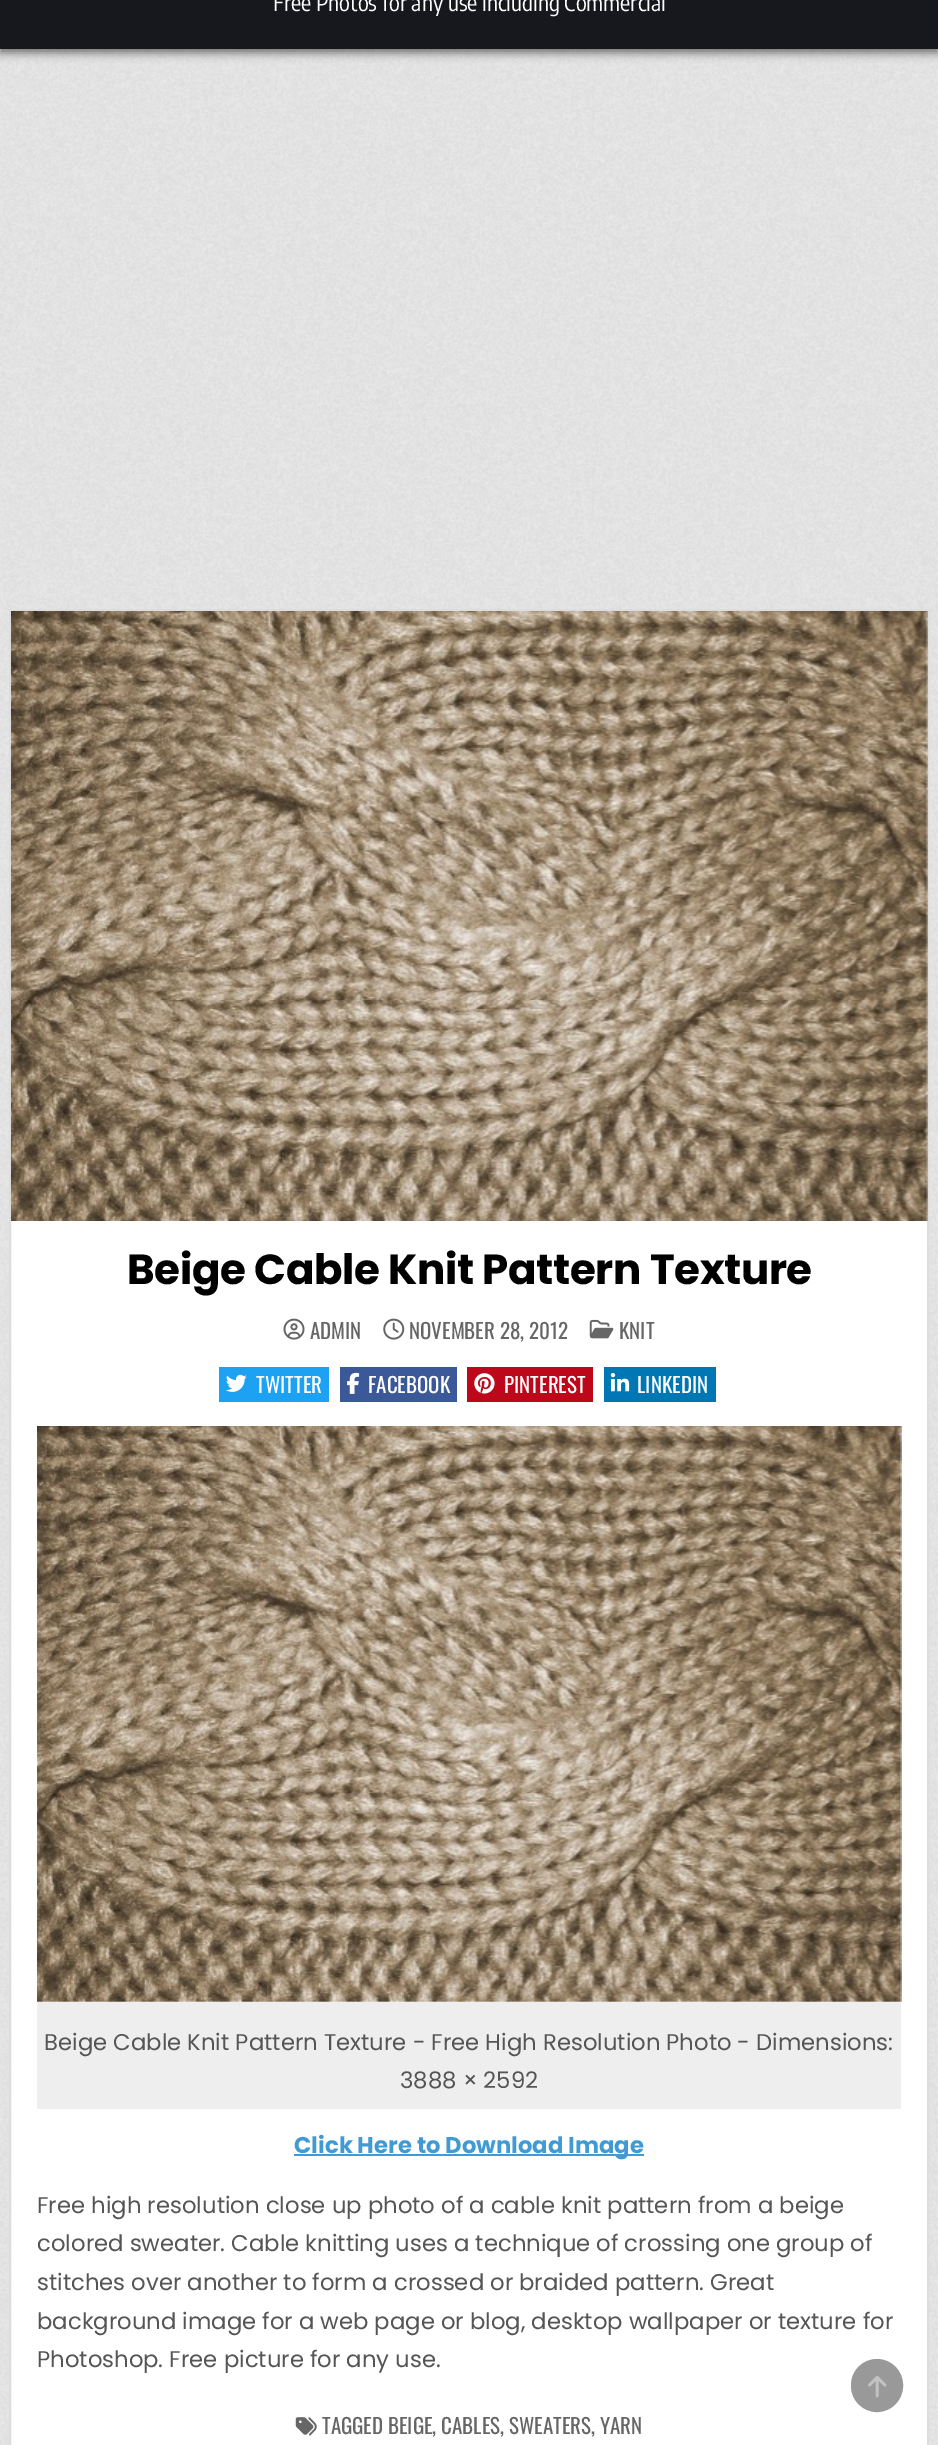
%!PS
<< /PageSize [938 2445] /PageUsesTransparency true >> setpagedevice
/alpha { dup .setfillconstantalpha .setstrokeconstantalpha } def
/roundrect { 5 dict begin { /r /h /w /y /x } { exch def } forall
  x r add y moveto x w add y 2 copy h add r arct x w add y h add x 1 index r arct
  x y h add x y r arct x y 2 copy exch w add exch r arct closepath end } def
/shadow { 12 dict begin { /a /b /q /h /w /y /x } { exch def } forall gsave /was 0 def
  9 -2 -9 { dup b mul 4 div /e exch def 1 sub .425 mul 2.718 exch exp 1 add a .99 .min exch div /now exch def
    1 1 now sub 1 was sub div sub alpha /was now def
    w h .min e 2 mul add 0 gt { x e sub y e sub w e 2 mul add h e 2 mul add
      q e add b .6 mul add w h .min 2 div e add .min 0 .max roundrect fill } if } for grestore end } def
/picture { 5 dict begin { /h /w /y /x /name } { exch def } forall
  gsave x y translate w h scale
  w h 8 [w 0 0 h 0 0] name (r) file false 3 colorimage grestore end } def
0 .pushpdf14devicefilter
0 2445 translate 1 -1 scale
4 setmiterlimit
1 setgray
0 0 938 2445 rectfill
(img1.rgb) 0 49 938 2396 picture
0 setgray
0 -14 938 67 0 4.5 0.5 shadow
0.086 0.094 0.118 setrgbcolor
0 0 938 49 rectfill
/EncodeSansCondensed-Regular [22.75 0 0 -22.75 0 0] selectfont
1 setgray
273 11 moveto (Free Photos for any use including Commercial) show
newpath 10 610 moveto 928 610 lineto 928 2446 lineto 10 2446 lineto closepath gsave fill grestore
0.867 setgray
2 setlinewidth
stroke
(img2.rgb) 11 611 917 610 picture
/Poppins-Bold [42 0 0 -42 0 0] selectfont
0 setgray
127 1284 moveto -0.35 0 (Beige Cable Knit Pattern Texture) ashow
(img3.rgb) 283 1318 22 22 picture
/Oswald-Regular [21 0 0 -21 0 0] selectfont
0.4 setgray
310 1339 moveto (ADMIN) show
(img4.rgb) 383 1318 22 22 picture
409 1339 moveto (NOVEMBER 28, 2012) show
(img5.rgb) 589 1319 25 20 picture
619 1339 moveto (KNIT) show
0.114 0.631 0.949 setrgbcolor
219 1367 110 35 rectfill
(img6.rgb) 226 1374 21 18 picture
1 setgray
256 1393 moveto (TWITTER) show
0.231 0.349 0.596 setrgbcolor
340 1367 117 35 rectfill
(img7.rgb) 347 1372 13 22 picture
1 setgray
368 1393 moveto (FACEBOOK) show
0.741 0.031 0.11 setrgbcolor
467 1367 126 35 rectfill
(img8.rgb) 474 1373 21 21 picture
1 setgray
504 1393 moveto (PINTEREST) show
0 0.467 0.71 setrgbcolor
604 1367 112 35 rectfill
(img9.rgb) 610 1372 20 20 picture
1 setgray
637 1393 moveto (LINKEDIN) show
0.933 setgray
37 1426 864 683 rectfill
(img10.rgb) 37 1426 865 576 picture
/Poppins-Regular [22.75 0 0 -22.75 0 0] selectfont
0.333 setgray
44 2050 moveto (Beige Cable Knit Pattern Texture - Free High Resolution Photo - Dimensions:) show
400 2088 moveto (3888 × 2592) show
0.251 0.608 0.831 setrgbcolor
294 2154 350 2 rectfill
/Poppins-Bold [22.75 0 0 -22.75 0 0] selectfont
294 2153 moveto (Click Here to Download Image) show
/Poppins-Regular [22.75 0 0 -22.75 0 0] selectfont
0.333 setgray
37 2213 moveto (Free high resolution close up photo of a cable knit pattern from a beige) show
37 2251 moveto (colored sweater. Cable knitting uses a technique of crossing one group of) show
37 2290 moveto (stitches over another to form a crossed or braided pattern. Great) show
37 2329 moveto (background image for a web page or blog, desktop wallpaper or texture for) show
37 2367 moveto (Photoshop. Free picture for any use.) show
(img11.rgb) 295 2417 22 19 picture
/Oswald-Regular [21 0 0 -21 0 0] selectfont
0.4 setgray
322 2434 moveto (TAGGED BEIGE, CABLES, SWEATERS, YARN) show
0.6 setgray
852 2360 50 51 25 roundrect gsave fill grestore
stroke
(img12.rgb) 868 2376 19 22 picture
.poppdf14devicefilter showpage
